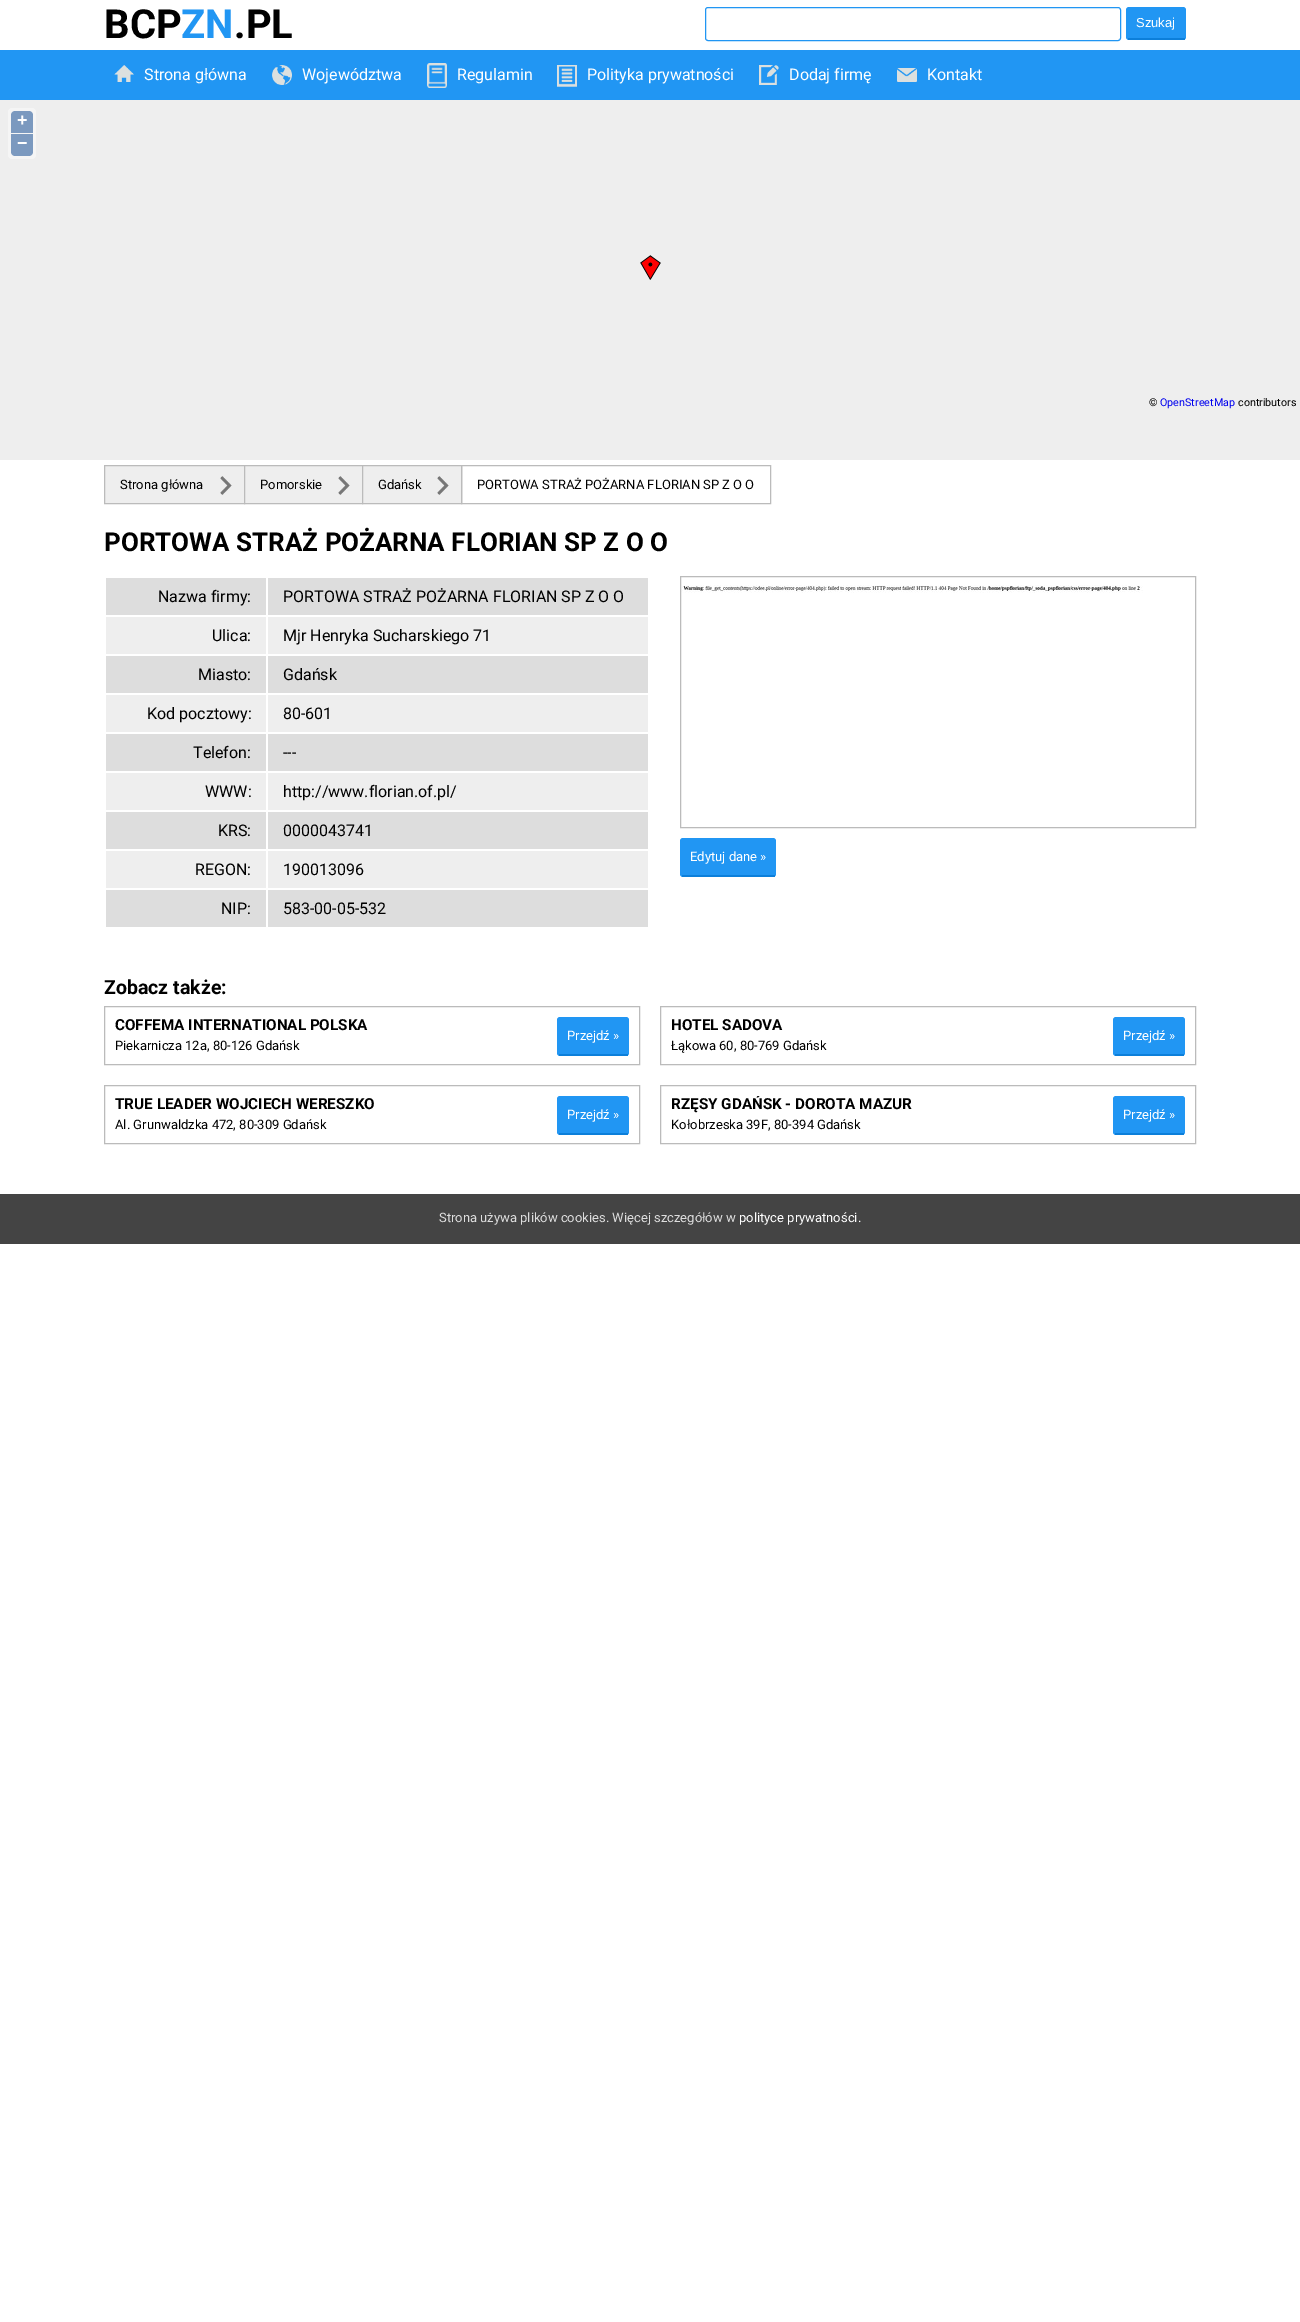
%!PS
<< /PageSize [1300 2322] >> setpagedevice
/roundrect { 5 dict begin { /r /h /w /y /x } { exch def } forall
  x r add y moveto x w add y 2 copy h add r arct x w add y h add x 1 index r arct
  x y h add x y r arct x y 2 copy exch w add exch r arct closepath end } def
/picture { 5 dict begin { /h /w /y /x /name } { exch def } forall
  gsave x y translate w h scale
  w h 8 [w 0 0 h 0 0] name (r) file false 3 colorimage grestore end } def
0 2322 translate 1 -1 scale
4 setmiterlimit
1 setgray
0 0 1300 2322 rectfill
/Roboto-Bold [40 0 0 -40 0 0] selectfont
0 setgray
104 38 moveto (BCP) show
0.129 0.588 0.953 setrgbcolor
181 38 moveto (ZN) show
0 setgray
234 38 moveto (.PL) show
0.129 0.588 0.953 setrgbcolor
705.5 7.5 415 33 2.5 roundrect stroke
1126 7 60 33 3 roundrect fill
0.047 0.498 0.855 setrgbcolor
1128 38 57 2 rectfill
/LiberationSans-Regular [13 0 0 -13 0 0] selectfont
1 setgray
1136 27 moveto (Szukaj) show
0.129 0.588 0.953 setrgbcolor
0 50 1300 50 rectfill
(img1.rgb) 114 65 20 17 picture
/Roboto-Regular [16 0 0 -16 0 0] selectfont
1 setgray
144 80 moveto (Strona główna) show
(img2.rgb) 272 65 20 20 picture
302 80 moveto (Województwa) show
(img3.rgb) 427 63 20 25 picture
457 80 moveto (Regulamin) show
(img4.rgb) 557 65 20 22 picture
587 80 moveto (Polityka prywatności) show
(img5.rgb) 759 65 20 20 picture
789 80 moveto (Dodaj firmę) show
(img6.rgb) 897 68 20 14 picture
927 80 moveto (Kontakt) show
0.933 setgray
0 100 1300 360 rectfill
0.961 setgray
8 108 28 51 4 roundrect fill
0.482 0.6 0.749 setrgbcolor
newpath 15 111 moveto 29 111 lineto 31 111 33 113 33 115 curveto 33 133 lineto 11 133 lineto 11 115 lineto 11 113 13 111 15 111 curveto closepath fill
/LiberationSans-Bold [18 0 0 -18 0 0] selectfont
1 setgray
17 126 moveto (+) show
0.482 0.6 0.749 setrgbcolor
newpath 11 134 moveto 33 134 lineto 33 152 lineto 33 154 31 156 29 156 curveto 15 156 lineto 13 156 11 154 11 152 curveto closepath fill
1 setgray
17 149 moveto (−) show
(img7.rgb) 640 255 21 25 picture
/Roboto-Regular [10.75 0 0 -10.75 0 0] selectfont
0 setgray
1149 406 moveto (©) show
0 0 0.933 setrgbcolor
1160 406 moveto (OpenStreetMap) show
0 setgray
1238 406 moveto (contributors) show
0.933 setgray
newpath 104.5 465.5 moveto 244.5 465.5 lineto 244.5 503.5 lineto 104.5 503.5 lineto closepath gsave fill grestore
0.733 setgray
stroke
/Roboto-Regular [13 0 0 -13 0 0] selectfont
0 setgray
120 489 moveto (Strona główna) show
(img8.rgb) 220 476 12 19 picture
0.933 setgray
newpath 244.5 465.5 moveto 362.5 465.5 lineto 362.5 503.5 lineto 244.5 503.5 lineto closepath gsave fill grestore
0.733 setgray
stroke
0 setgray
260 489 moveto (Pomorskie) show
(img8.rgb) 338 476 12 19 picture
0.733 setgray
461.5 465.5 309 38 rectstroke
0.933 setgray
newpath 362.5 465.5 moveto 461.5 465.5 lineto 461.5 503.5 lineto 362.5 503.5 lineto closepath gsave fill grestore
0.733 setgray
stroke
0 setgray
378 489 moveto (Gdańsk) show
(img8.rgb) 437 476 12 19 picture
477 489 moveto (PORTOWA STRAŻ POŻARNA FLORIAN SP Z O O) show
/Roboto-Bold [26 0 0 -26 0 0] selectfont
104 551 moveto (PORTOWA STRAŻ POŻARNA FLORIAN SP Z O O) show
0.867 setgray
106 578 160 37 rectfill
/Roboto-Regular [16 0 0 -16 0 0] selectfont
0 setgray
158 602 moveto (Nazwa firmy:) show
0.867 setgray
268 578 380 37 rectfill
0 setgray
283 602 moveto (PORTOWA STRAŻ POŻARNA FLORIAN SP Z O O) show
0.933 setgray
106 617 160 37 rectfill
0 setgray
212 641 moveto (Ulica:) show
0.933 setgray
268 617 380 37 rectfill
0 setgray
283 641 moveto (Mjr Henryka Sucharskiego 71) show
0.867 setgray
106 656 160 37 rectfill
0 setgray
198 680 moveto (Miasto:) show
0.867 setgray
268 656 380 37 rectfill
0 setgray
283 680 moveto (Gdańsk) show
0.933 setgray
106 695 160 37 rectfill
0 setgray
147 719 moveto (Kod pocztowy:) show
0.933 setgray
268 695 380 37 rectfill
0 setgray
283 719 moveto (80-601) show
0.867 setgray
106 734 160 37 rectfill
0 setgray
193 758 moveto (Telefon:) show
0.867 setgray
268 734 380 37 rectfill
0 setgray
283 758 moveto (---) show
0.933 setgray
106 773 160 37 rectfill
0 setgray
205 797 moveto (WWW:) show
0.933 setgray
268 773 380 37 rectfill
0 setgray
283 797 moveto (http://www.florian.of.pl/) show
0.867 setgray
106 812 160 37 rectfill
0 setgray
218 836 moveto (KRS:) show
0.867 setgray
268 812 380 37 rectfill
0 setgray
283 836 moveto (0000043741) show
0.933 setgray
106 851 160 37 rectfill
0 setgray
195 875 moveto (REGON:) show
0.933 setgray
268 851 380 37 rectfill
0 setgray
283 875 moveto (190013096) show
0.867 setgray
106 890 160 37 rectfill
0 setgray
221 914 moveto (NIP:) show
0.867 setgray
268 890 380 37 rectfill
0 setgray
283 914 moveto (583-00-05-532) show
(img9.rgb) 681 585 462 8 picture
0.733 setgray
680.5 576.5 515 251 rectstroke
0.129 0.588 0.953 setrgbcolor
680 838 96 39 3 roundrect fill
0.047 0.498 0.855 setrgbcolor
682 875 93 2 rectfill
/Roboto-Regular [13 0 0 -13 0 0] selectfont
1 setgray
690 861 moveto (Edytuj dane ») show
/Roboto-Bold [19.5 0 0 -19.5 0 0] selectfont
0 setgray
104 994 moveto (Zobacz także:) show
0.733 setgray
104.5 1006.5 535 58 rectstroke
/Roboto-Bold [15.25 0 0 -15.25 0 0] selectfont
0 setgray
115 1030 moveto (COFFEMA INTERNATIONAL POLSKA) show
0.129 0.588 0.953 setrgbcolor
557 1017 72 39 3 roundrect fill
0.047 0.498 0.855 setrgbcolor
559 1054 69 2 rectfill
/Roboto-Regular [13 0 0 -13 0 0] selectfont
1 setgray
567 1040 moveto (Przejdź ») show
0 setgray
115 1050 moveto (Piekarnicza 12a, 80-126 Gdańsk) show
0.733 setgray
660.5 1006.5 535 58 rectstroke
/Roboto-Bold [15.25 0 0 -15.25 0 0] selectfont
0 setgray
671 1030 moveto (HOTEL SADOVA) show
0.129 0.588 0.953 setrgbcolor
1113 1017 72 39 3 roundrect fill
0.047 0.498 0.855 setrgbcolor
1115 1054 69 2 rectfill
/Roboto-Regular [13 0 0 -13 0 0] selectfont
1 setgray
1123 1040 moveto (Przejdź ») show
0 setgray
671 1050 moveto (Łąkowa 60, 80-769 Gdańsk) show
0.733 setgray
104.5 1085.5 535 58 rectstroke
/Roboto-Bold [15.25 0 0 -15.25 0 0] selectfont
0 setgray
115 1109 moveto (TRUE LEADER WOJCIECH WERESZKO) show
0.129 0.588 0.953 setrgbcolor
557 1096 72 39 3 roundrect fill
0.047 0.498 0.855 setrgbcolor
559 1133 69 2 rectfill
/Roboto-Regular [13 0 0 -13 0 0] selectfont
1 setgray
567 1119 moveto (Przejdź ») show
0 setgray
115 1129 moveto (Al. Grunwaldzka 472, 80-309 Gdańsk) show
0.733 setgray
660.5 1085.5 535 58 rectstroke
gsave
671 1096 450 17 rectclip
/Roboto-Bold [15.25 0 0 -15.25 0 0] selectfont
0 setgray
671 1109 moveto (RZĘSY GDAŃSK - DOROTA MAZUR) show
grestore
0.129 0.588 0.953 setrgbcolor
1113 1096 72 39 3 roundrect fill
0.047 0.498 0.855 setrgbcolor
1115 1133 69 2 rectfill
1 setgray
1123 1119 moveto (Przejdź ») show
0 setgray
671 1129 moveto (Kołobrzeska 39F, 80-394 Gdańsk) show
0.267 setgray
0 1194 1300 50 rectfill
0.867 setgray
439 1222 moveto (Strona używa plików cookies. Więcej szczegółów w) show
1 setgray
739 1222 moveto (polityce prywatności.) show
showpage
